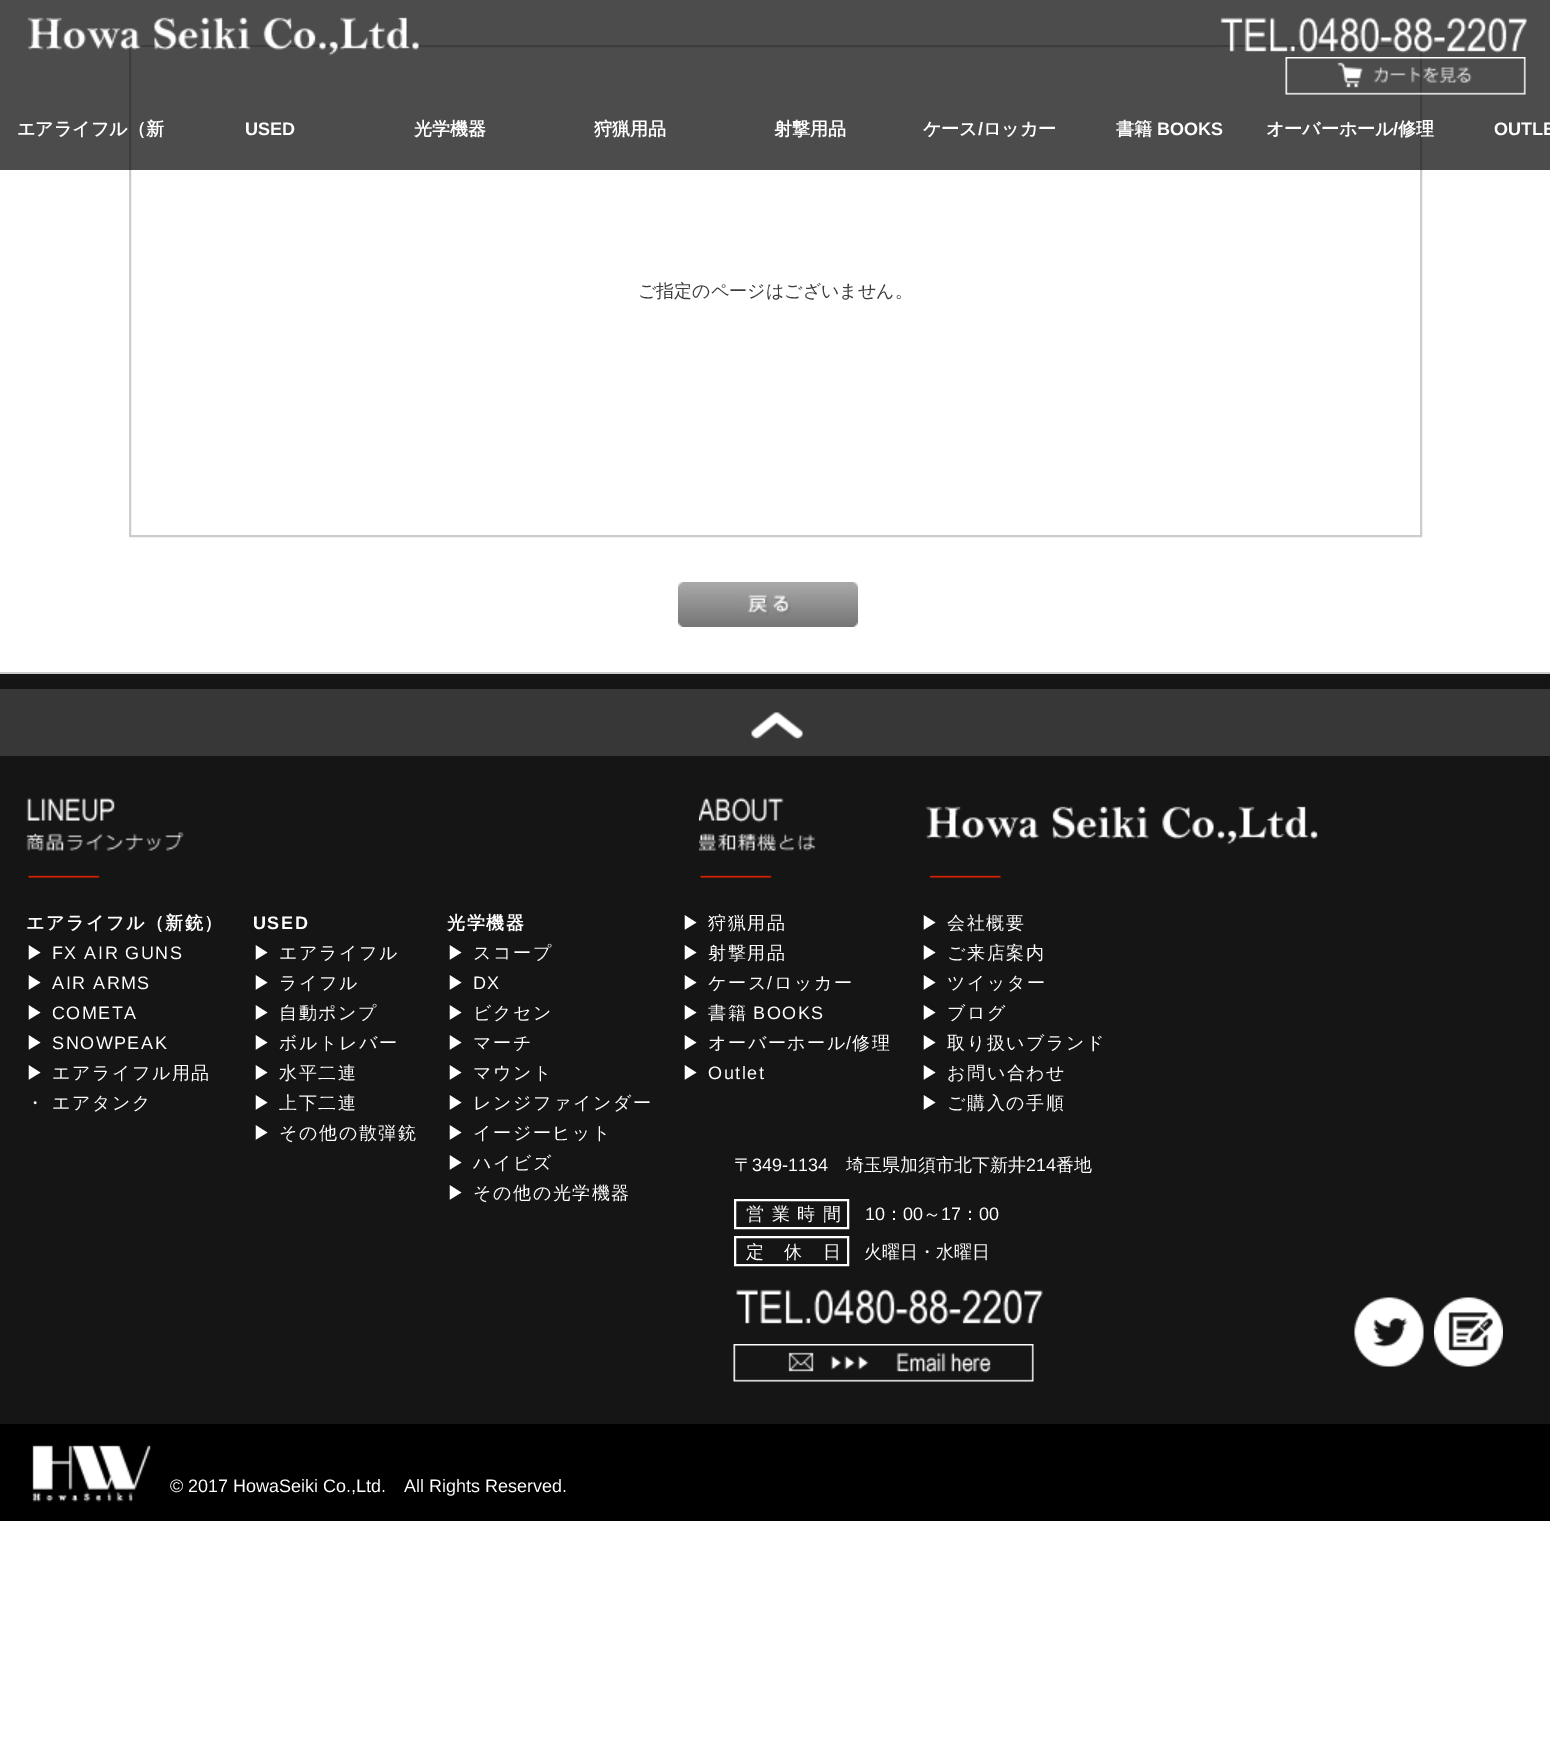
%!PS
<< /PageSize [1550 1754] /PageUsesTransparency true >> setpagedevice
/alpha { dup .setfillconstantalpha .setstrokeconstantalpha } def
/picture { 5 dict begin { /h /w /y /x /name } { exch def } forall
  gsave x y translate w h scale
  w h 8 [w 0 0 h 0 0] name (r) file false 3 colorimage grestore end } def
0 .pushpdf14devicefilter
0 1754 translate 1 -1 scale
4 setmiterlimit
1 setgray
0 0 1550 1754 rectfill
0.8 setgray
2 setlinewidth
130 46 1291 490 rectstroke
0.7 alpha
0 setgray
0 0 1550 170 rectfill
1 alpha
(img1.rgb) 27 17 392 39 picture
(img2.rgb) 1220 17 307 36 picture
(img3.rgb) 1285 57 241 38 picture
/WenQuanYiZenHei-Bold [18 0 0 -18 0 0] selectfont
1 setgray
17 135 moveto (エアライフル（新) show
/LiberationSans-Bold [18 0 0 -18 0 0] selectfont
245 135 moveto (USED) show
/WenQuanYiZenHei-Bold [18 0 0 -18 0 0] selectfont
414 135 moveto (光学機器) show
594 135 moveto (狩猟用品) show
774 135 moveto (射撃用品) show
923 135 moveto (ケース) show
/LiberationSans-Bold [18 0 0 -18 0 0] selectfont
978 135 moveto (/) show
/WenQuanYiZenHei-Bold [18 0 0 -18 0 0] selectfont
983 135 moveto (ロッカー) show
1116 135 moveto (書籍) show
/LiberationSans-Bold [18 0 0 -18 0 0] selectfont
1157 135 moveto (BOOKS) show
/WenQuanYiZenHei-Bold [18 0 0 -18 0 0] selectfont
1266 135 moveto (オーバーホール) show
/LiberationSans-Bold [18 0 0 -18 0 0] selectfont
1393 135 moveto (/) show
/WenQuanYiZenHei-Bold [18 0 0 -18 0 0] selectfont
1398 135 moveto (修理) show
/LiberationSans-Bold [18 0 0 -18 0 0] selectfont
1494 135 moveto (OUTLE) show
/WenQuanYiZenHei-Medium [18 0 0 -18 0 0] selectfont
0.239 0.235 0.235 setrgbcolor
638 297 moveto (ご指定のページはございません。) show
(img4.rgb) 678 582 180 45 picture
0.082 setgray
0 674 1550 750 rectfill
0.8 setgray
0 672 1550 2 rectfill
0.216 setgray
0 689 1550 67 rectfill
(img5.rgb) 751 712 52 27 picture
(img6.rgb) 26 797 158 81 picture
(img7.rgb) 699 797 117 81 picture
(img8.rgb) 925 806 393 72 picture
/WenQuanYiZenHei-Bold [18 0 0 -18 0 0] selectfont
1 setgray
26 929 moveto 1.5 0 (エアライフル（新銃）) ashow
/WenQuanYiZenHei-Medium [18 0 0 -18 0 0] selectfont
26 959 moveto 1.5 0 (▶) ashow
/LiberationSans-Regular [18 0 0 -18 0 0] selectfont
52 959 moveto 1.5 0 (FX AIR GUNS) ashow
/WenQuanYiZenHei-Medium [18 0 0 -18 0 0] selectfont
26 989 moveto 1.5 0 (▶) ashow
/LiberationSans-Regular [18 0 0 -18 0 0] selectfont
52 989 moveto 1.5 0 (AIR ARMS) ashow
/WenQuanYiZenHei-Medium [18 0 0 -18 0 0] selectfont
26 1019 moveto 1.5 0 (▶) ashow
/LiberationSans-Regular [18 0 0 -18 0 0] selectfont
52 1019 moveto 1.5 0 (COMETA) ashow
/WenQuanYiZenHei-Medium [18 0 0 -18 0 0] selectfont
26 1049 moveto 1.5 0 (▶) ashow
/LiberationSans-Regular [18 0 0 -18 0 0] selectfont
52 1049 moveto 1.5 0 (SNOWPEAK) ashow
/WenQuanYiZenHei-Medium [18 0 0 -18 0 0] selectfont
26 1079 moveto 1.5 0 (▶ エアライフル用品) ashow
26 1109 moveto 1.5 0 (・ エアタンク) ashow
/LiberationSans-Bold [18 0 0 -18 0 0] selectfont
253 929 moveto 1.5 0 (USED) ashow
/WenQuanYiZenHei-Medium [18 0 0 -18 0 0] selectfont
253 959 moveto 1.5 0 (▶ エアライフル) ashow
253 989 moveto 1.5 0 (▶ ライフル) ashow
253 1019 moveto 1.5 0 (▶ 自動ポンプ) ashow
253 1049 moveto 1.5 0 (▶ ボルトレバー) ashow
253 1079 moveto 1.5 0 (▶ 水平二連) ashow
253 1109 moveto 1.5 0 (▶ 上下二連) ashow
253 1139 moveto 1.5 0 (▶ その他の散弾銃) ashow
/WenQuanYiZenHei-Bold [18 0 0 -18 0 0] selectfont
447 929 moveto 1.5 0 (光学機器) ashow
/WenQuanYiZenHei-Medium [18 0 0 -18 0 0] selectfont
447 959 moveto 1.5 0 (▶ スコープ) ashow
447 989 moveto 1.5 0 (▶) ashow
/LiberationSans-Regular [18 0 0 -18 0 0] selectfont
473 989 moveto 1.5 0 (DX) ashow
/WenQuanYiZenHei-Medium [18 0 0 -18 0 0] selectfont
447 1019 moveto 1.5 0 (▶ ビクセン) ashow
447 1049 moveto 1.5 0 (▶ マーチ) ashow
447 1079 moveto 1.5 0 (▶ マウント) ashow
447 1109 moveto 1.5 0 (▶ レンジファインダー) ashow
447 1139 moveto 1.5 0 (▶ イージーヒット) ashow
447 1169 moveto 1.5 0 (▶ ハイビズ) ashow
447 1199 moveto 1.5 0 (▶ その他の光学機器) ashow
682 929 moveto 1.5 0 (▶ 狩猟用品) ashow
682 959 moveto 1.5 0 (▶ 射撃用品) ashow
682 989 moveto 1.5 0 (▶ ケース) ashow
/LiberationSans-Regular [18 0 0 -18 0 0] selectfont
767 989 moveto 1.5 0 (/) ashow
/WenQuanYiZenHei-Medium [18 0 0 -18 0 0] selectfont
774 989 moveto 1.5 0 (ロッカー) ashow
682 1019 moveto 1.5 0 (▶ 書籍) ashow
/LiberationSans-Regular [18 0 0 -18 0 0] selectfont
753 1019 moveto 1.5 0 (BOOKS) ashow
/WenQuanYiZenHei-Medium [18 0 0 -18 0 0] selectfont
682 1049 moveto 1.5 0 (▶ オーバーホール) ashow
/LiberationSans-Regular [18 0 0 -18 0 0] selectfont
846 1049 moveto 1.5 0 (/) ashow
/WenQuanYiZenHei-Medium [18 0 0 -18 0 0] selectfont
852 1049 moveto 1.5 0 (修理) ashow
682 1079 moveto 1.5 0 (▶) ashow
/LiberationSans-Regular [18 0 0 -18 0 0] selectfont
708 1079 moveto 1.5 0 (Outlet) ashow
/WenQuanYiZenHei-Medium [18 0 0 -18 0 0] selectfont
921 929 moveto 1.5 0 (▶ 会社概要) ashow
921 959 moveto 1.5 0 (▶ ご来店案内) ashow
921 989 moveto 1.5 0 (▶ ツイッター) ashow
921 1019 moveto 1.5 0 (▶ ブログ) ashow
921 1049 moveto 1.5 0 (▶ 取り扱いブランド) ashow
921 1079 moveto 1.5 0 (▶ お問い合わせ) ashow
921 1109 moveto 1.5 0 (▶ ご購入の手順) ashow
734 1171 moveto (〒) show
/LiberationSans-Regular [18 0 0 -18 0 0] selectfont
752 1171 moveto (349-1134) show
/WenQuanYiZenHei-Medium [18 0 0 -18 0 0] selectfont
846 1171 moveto (埼玉県加須市北下新井) show
/LiberationSans-Regular [18 0 0 -18 0 0] selectfont
1026 1171 moveto (214) show
/WenQuanYiZenHei-Medium [18 0 0 -18 0 0] selectfont
1056 1171 moveto (番地) show
735 1200 113 28 rectstroke
746 1220 moveto 7.5 0 (営業時間) ashow
/LiberationSans-Regular [18 0 0 -18 0 0] selectfont
865 1220 moveto (10) show
/WenQuanYiZenHei-Medium [18 0 0 -18 0 0] selectfont
885 1220 moveto (：) show
/LiberationSans-Regular [18 0 0 -18 0 0] selectfont
903 1220 moveto (00) show
/WenQuanYiZenHei-Medium [18 0 0 -18 0 0] selectfont
923 1220 moveto (～) show
/LiberationSans-Regular [18 0 0 -18 0 0] selectfont
941 1220 moveto (17) show
/WenQuanYiZenHei-Medium [18 0 0 -18 0 0] selectfont
961 1220 moveto (：) show
/LiberationSans-Regular [18 0 0 -18 0 0] selectfont
979 1220 moveto (00) show
735 1237 113 28 rectstroke
/WenQuanYiZenHei-Medium [18 0 0 -18 0 0] selectfont
746 1258 moveto 7.5 0 (定 休 日) ashow
864 1258 moveto (火曜日・水曜日) show
(img9.rgb) 736 1289 307 36 picture
(img10.rgb) 733 1344 301 38 picture
(img11.rgb) 1354 1297 70 70 picture
(img12.rgb) 1434 1297 69 70 picture
0 setgray
0 1424 1550 97 rectfill
(img13.rgb) 32 1445 119 57 picture
/LiberationSans-Regular [18 0 0 -18 0 0] selectfont
1 setgray
170 1492 moveto (© 2017 HowaSeiki Co.,Ltd.) show
404 1492 moveto (All Rights Reserved.) show
.poppdf14devicefilter showpage
